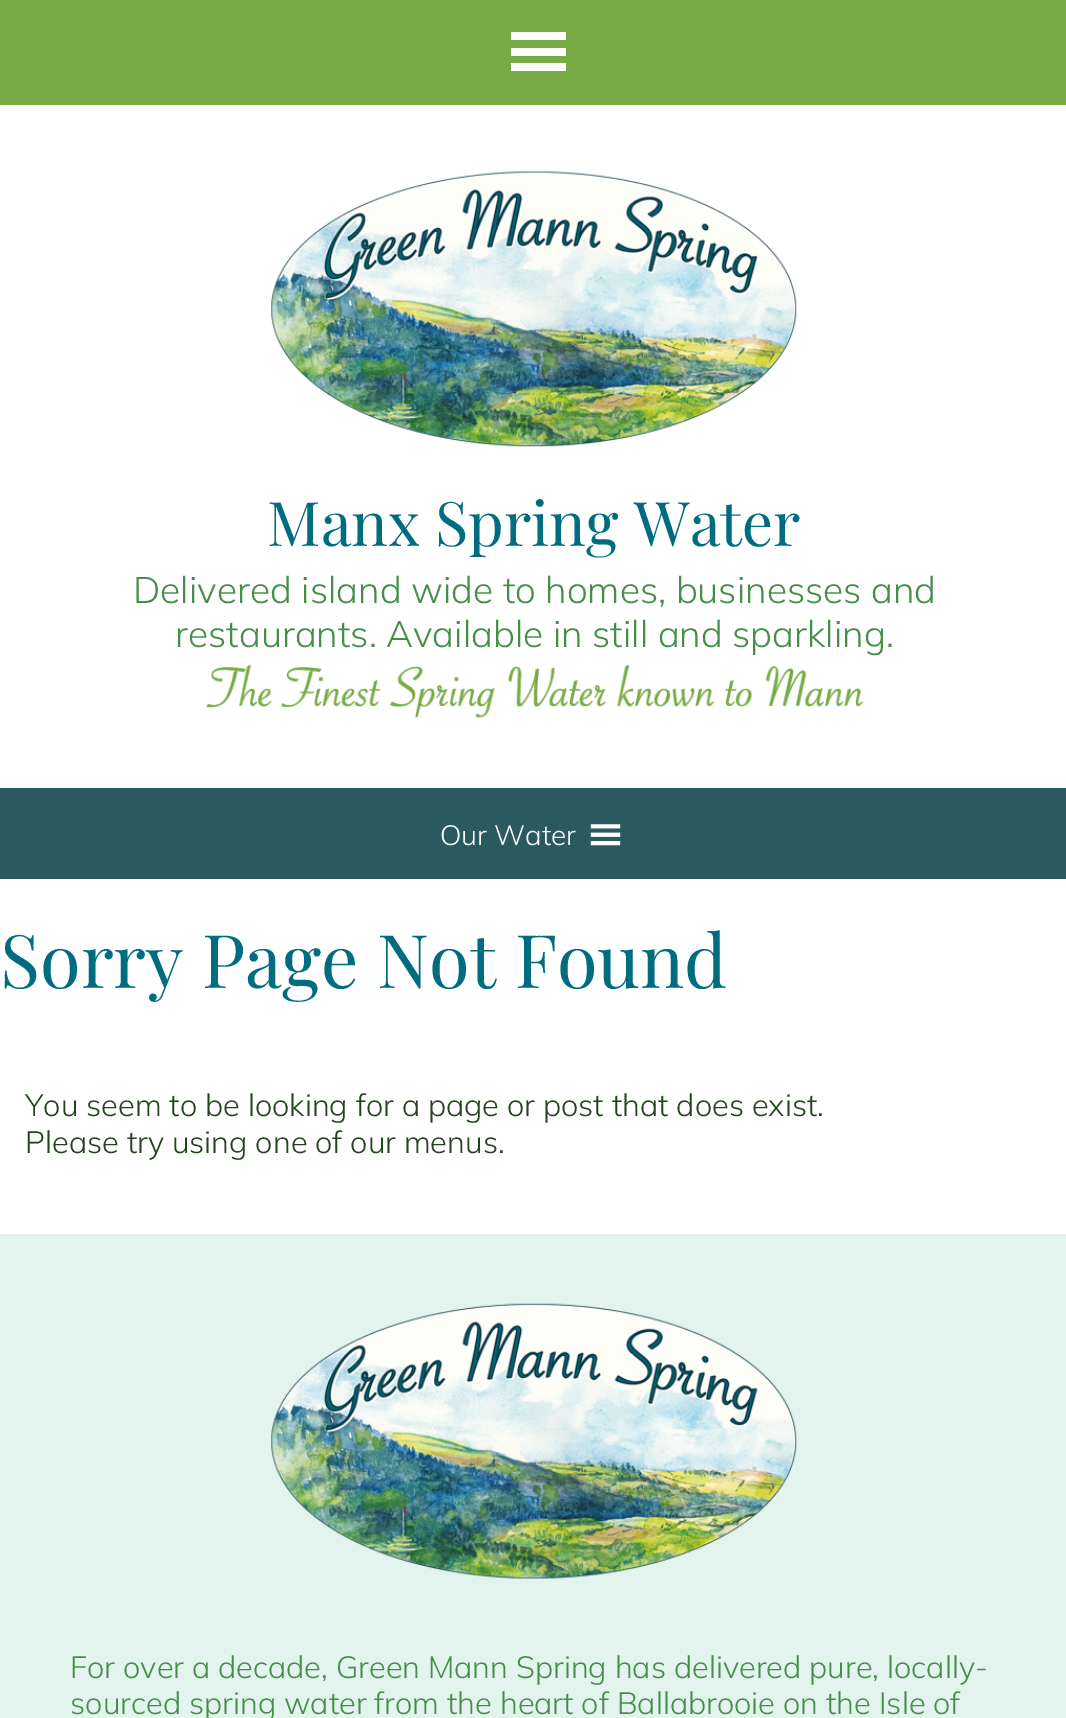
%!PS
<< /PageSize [1066 1718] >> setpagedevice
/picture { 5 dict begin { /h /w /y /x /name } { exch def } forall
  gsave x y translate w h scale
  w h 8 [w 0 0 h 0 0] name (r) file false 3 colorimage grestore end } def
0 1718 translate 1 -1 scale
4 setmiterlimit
1 setgray
0 0 1066 1718 rectfill
0.467 0.671 0.271 setrgbcolor
0 0 1066 105 rectfill
1 setgray
newpath 511 71 moveto 566 71 lineto 566 63 lineto 511 63 lineto closepath 511 32 moveto 511 40 lineto 566 40 lineto 566 32 lineto closepath 511 56 moveto 566 56 lineto 566 48 lineto 511 48 lineto closepath fill
(img1.rgb) 271 171 526 276 picture
/PlayfairDisplay-Regular [61.5 0 0 -61.5 0 0] selectfont
0 0.424 0.498 setrgbcolor
267 546 moveto (Manx Spring Water) show
/Mulish-Light [37 0 0 -37 0 0] selectfont
0.271 0.557 0.278 setrgbcolor
133 603 moveto (Delivered island wide to homes, businesses and) show
175 647 moveto (restaurants. Available in still and sparkling.) show
(img2.rgb) 206 665 657 53 picture
0.169 0.349 0.376 setrgbcolor
0 788 1066 91 rectfill
/Mulish-Light [28 0 0 -28 0 0] selectfont
1 setgray
440 845 moveto (Our Water) show
(img3.rgb) 590 824 31 22 picture
/PlayfairDisplay-Regular [74 0 0 -74 0 0] selectfont
0 0.424 0.498 setrgbcolor
0 988 moveto (Sorry Page Not Found) show
/Mulish-Light [30.8 0 0 -30.8 0 0] selectfont
0.133 0.267 0.114 setrgbcolor
25 1116 moveto (You seem to be looking for a page or post that does exist.) show
25 1153 moveto (Please try using one of our menus.) show
0.89 0.957 0.937 setrgbcolor
0 1234 1066 484 rectfill
(img4.rgb) 271 1303 526 276 picture
0.271 0.557 0.278 setrgbcolor
70 1678 moveto (For over a decade, Green Mann Spring has delivered pure, locally-) show
70 1714 moveto (sourced spring water from the heart of Ballabrooie on the Isle of) show
showpage
